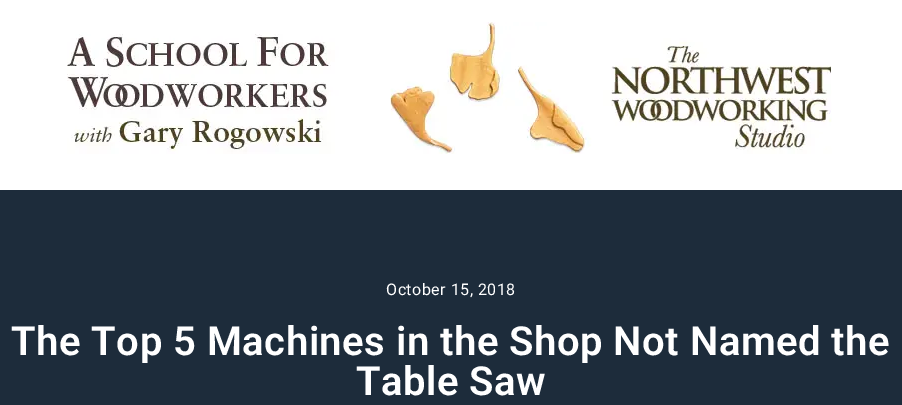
%!PS
<< /PageSize [902 405] >> setpagedevice
/picture { 5 dict begin { /h /w /y /x /name } { exch def } forall
  gsave x y translate w h scale
  w h 8 [w 0 0 h 0 0] name (r) file false 3 colorimage grestore end } def
0 405 translate 1 -1 scale
4 setmiterlimit
1 setgray
0 0 902 405 rectfill
(img1.rgb) 67 22 765 132 picture
0.114 0.173 0.231 setrgbcolor
0 190 902 215 rectfill
/Roboto-Regular [16 0 0 -16 0 0] selectfont
1 setgray
386 295 moveto 0.5 0 (October 15, 2018) ashow
/Roboto-SemiBold [40 0 0 -40 0 0] selectfont
11 355 moveto 0.5 0 (The Top 5 Machines in the Shop Not Named the) ashow
356 395 moveto 0.5 0 (Table Saw) ashow
showpage
